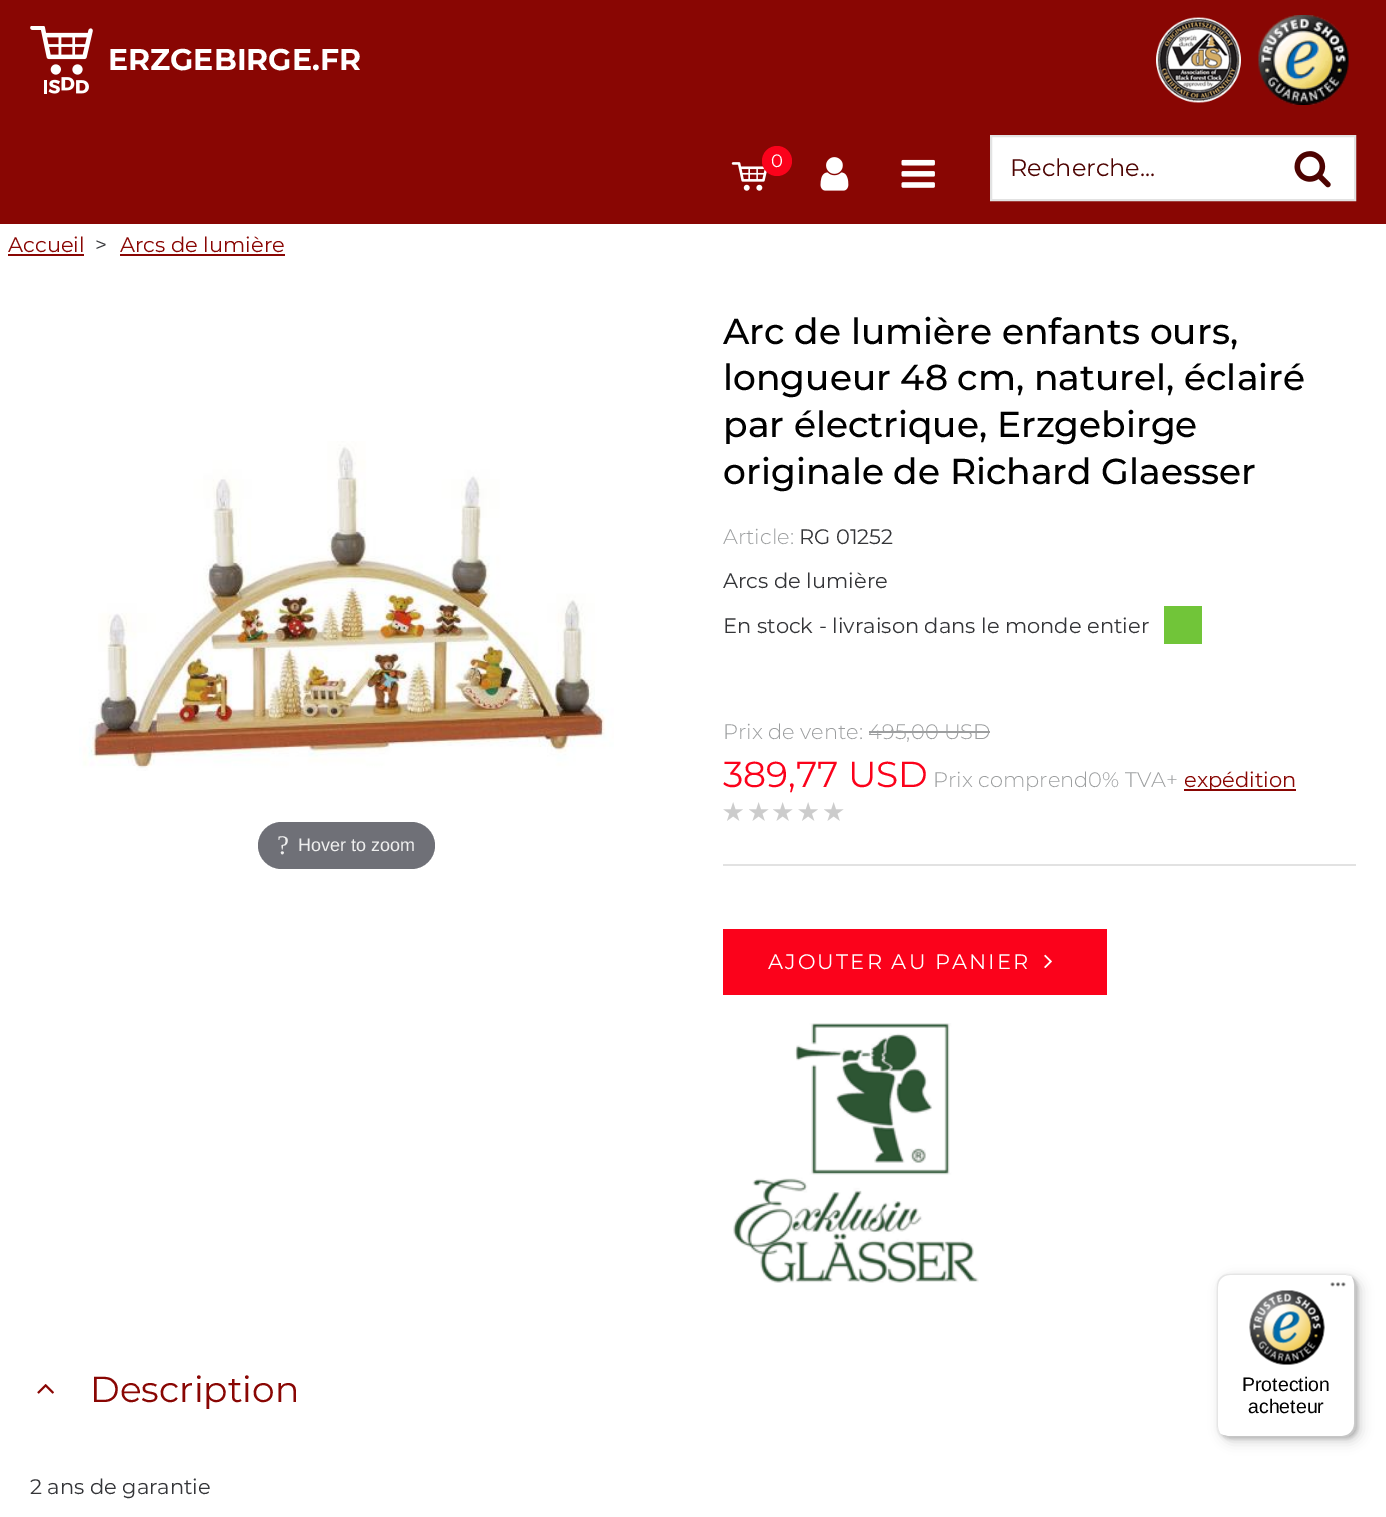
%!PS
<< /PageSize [1386 1517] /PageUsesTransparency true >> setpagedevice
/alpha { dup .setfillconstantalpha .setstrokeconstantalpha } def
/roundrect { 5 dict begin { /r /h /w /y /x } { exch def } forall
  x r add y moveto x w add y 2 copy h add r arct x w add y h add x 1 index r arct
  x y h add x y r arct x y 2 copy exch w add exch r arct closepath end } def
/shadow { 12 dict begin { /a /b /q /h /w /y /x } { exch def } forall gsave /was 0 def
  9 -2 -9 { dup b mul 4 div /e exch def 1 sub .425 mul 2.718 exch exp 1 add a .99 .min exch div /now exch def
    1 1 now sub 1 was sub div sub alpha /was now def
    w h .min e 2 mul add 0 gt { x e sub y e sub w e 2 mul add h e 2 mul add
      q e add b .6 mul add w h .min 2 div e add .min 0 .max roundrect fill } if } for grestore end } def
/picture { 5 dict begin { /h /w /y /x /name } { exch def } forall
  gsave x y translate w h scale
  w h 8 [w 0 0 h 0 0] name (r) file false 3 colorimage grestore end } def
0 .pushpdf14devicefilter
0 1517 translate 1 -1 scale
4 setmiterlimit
1 setgray
0 0 1386 1517 rectfill
0.537 0.024 0.012 setrgbcolor
0 0 1386 224 rectfill
(img1.rgb) 30 26 63 68 picture
/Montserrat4-Thin [30 0 0 -30 0 0] selectfont
1 setgray
108 70 moveto (ERZGEBIRGE.FR) show
(img2.rgb) 1156 17 85 86 picture
(img3.rgb) 1258 15 91 90 picture
(img4.rgb) 731 162 36 29 picture
0.984 0.008 0.106 setrgbcolor
newpath 777 161 15 0 360 arc closepath fill
/Montserrat-Thin [18 0 0 -18 0 0] selectfont
1 setgray
771 167 moveto (0) show
(img5.rgb) 820 157 29 34 picture
(img6.rgb) 901 159 34 29 picture
newpath 991 136 moveto 1355 136 lineto 1355 200 lineto 991 200 lineto closepath gsave fill grestore
0.886 setgray
2 setlinewidth
stroke
/Montserrat-Thin [24 0 0 -24 0 0] selectfont
0.302 0.012 0.004 setrgbcolor
1010 176 moveto (Recherche...) show
(img7.rgb) 1294 151 37 37 picture
/Montserrat-Thin [21 0 0 -21 0 0] selectfont
0.537 0.024 0.012 setrgbcolor
8 252 moveto (Accueil) show
8 254 76 2 rectfill
0.204 0.208 0.22 setrgbcolor
95 252 moveto (>) show
0.537 0.024 0.012 setrgbcolor
120 252 moveto (Arcs de lumière) show
120 254 165 2 rectfill
(img8.rgb) 79 441 535 330 picture
0.435 0.439 0.467 setrgbcolor
258 822 177 47 23.5 roundrect fill
/LiberationSerif-Regular [27 0 0 -27 0 0] selectfont
0.933 setgray
277 854 moveto (?) show
/LiberationSans-Regular [18 0 0 -18 0 0] selectfont
298 851 moveto (Hover to zoom) show
/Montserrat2-Thin [36 0 0 -36 0 0] selectfont
0 setgray
723 344 moveto (Arc de lumière enfants ours,) show
723 390 moveto (longueur 48 cm, naturel, éclairé) show
723 437 moveto (par électrique, Erzgebirge) show
723 484 moveto (originale de Richard Glaesser) show
/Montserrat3-Thin [21 0 0 -21 0 0] selectfont
0.612 0.62 0.624 setrgbcolor
723 544 moveto (Article:) show
/Montserrat-Thin [21 0 0 -21 0 0] selectfont
0.204 0.208 0.22 setrgbcolor
799 544 moveto (RG 01252) show
723 588 moveto (Arcs de lumière) show
723 633 moveto (En stock - livraison dans le monde entier) show
0.443 0.773 0.224 setrgbcolor
1164 606 38 38 rectfill
0.886 setgray
723 864 633 2 rectfill
/Montserrat3-Thin [21 0 0 -21 0 0] selectfont
0.612 0.62 0.624 setrgbcolor
723 739 moveto (Prix de vente: 495,00 USD) show
869 731 121 2 rectfill
/Montserrat-Thin [36 0 0 -36 0 0] selectfont
0.984 0.008 0.106 setrgbcolor
723 787 moveto (389,77 USD) show
/Montserrat3-Thin [21 0 0 -21 0 0] selectfont
0.612 0.62 0.624 setrgbcolor
933 787 moveto (Prix comprend0% TVA+) show
0.537 0.024 0.012 setrgbcolor
1184 789 112 2 rectfill
/Montserrat-Thin [21 0 0 -21 0 0] selectfont
1184 787 moveto (expédition) show
(img9.rgb) 723 802 20 19 picture
(img10.rgb) 749 802 20 19 picture
(img10.rgb) 773 802 20 19 picture
(img9.rgb) 798 802 20 19 picture
(img10.rgb) 824 802 20 19 picture
0.984 0.008 0.106 setrgbcolor
723 929 384 66 rectfill
1 setgray
768 969 moveto 2.1 0 (AJOUTER AU PANIER) ashow
(img11.rgb) 1044 954 8 15 picture
(img12.rgb) 733 1023 246 260 picture
(img13.rgb) 37 1384 17 10 picture
/Montserrat-Thin [36 0 0 -36 0 0] selectfont
0.537 0.024 0.012 setrgbcolor
90 1402 moveto (Description) show
/Montserrat-Thin [21 0 0 -21 0 0] selectfont
0.204 0.208 0.22 setrgbcolor
30 1494 moveto (2 ans de garantie) show
0 setgray
1221 1278 140 164 12 6 0.15 shadow
1218 1275 140 164 12 1.5 0.15 shadow
1 setgray
1217 1274 139 163 12 roundrect fill
0.898 setgray
newpath 1230 1275 moveto 1346 1275 lineto 1351 1276 lineto 1349 1275 1346 1274 1344 1274 curveto 1229 1274 lineto 1222 1274 1217 1279 1217 1286 curveto 1217 1425 lineto 1217 1428 1218 1431 1220 1433 curveto 1219 1431 1218 1429 1218 1426 curveto 1218 1287 lineto 1218 1280 1223 1275 1230 1275 curveto closepath fill
0.2 alpha
0 setgray
newpath 1223 1435 moveto 1224 1436 1227 1437 1229 1437 curveto 1344 1437 lineto 1351 1437 1356 1432 1356 1425 curveto 1356 1286 lineto 1356 1282 1354 1279 1352 1277 curveto 1353 1279 1354 1281 1354 1284 curveto 1354 1424 lineto 1354 1430 1349 1436 1342 1436 curveto 1227 1436 lineto closepath fill
0.196 setgray
newpath 1221 1434 moveto 1223 1436 1226 1437 1229 1437 curveto 1344 1437 lineto 1351 1437 1356 1432 1356 1425 curveto 1356 1286 lineto 1356 1283 1355 1280 1353 1278 curveto 1354 1280 1355 1282 1355 1285 curveto 1355 1424 lineto 1355 1431 1350 1436 1343 1436 curveto 1228 1436 lineto 1225 1436 1223 1435 1221 1434 curveto closepath fill
0.3 alpha
1 setgray
newpath 1221 1434 moveto 1223 1436 1226 1437 1229 1437 curveto 1344 1437 lineto 1351 1437 1356 1432 1356 1425 curveto 1356 1286 lineto 1356 1283 1355 1280 1353 1278 curveto 1354 1280 1355 1282 1355 1285 curveto 1355 1424 lineto 1355 1431 1350 1436 1343 1436 curveto 1228 1436 lineto 1225 1436 1223 1435 1221 1434 curveto closepath fill
1 alpha
(img14.rgb) 1330 1282 16 5 picture
(img15.rgb) 1249 1290 76 75 picture
/LiberationSans-Regular [19.5 0 0 -19.5 0 0] selectfont
0 setgray
1242 1391 moveto (Protection) show
1248 1413 moveto (acheteur) show
.poppdf14devicefilter showpage
